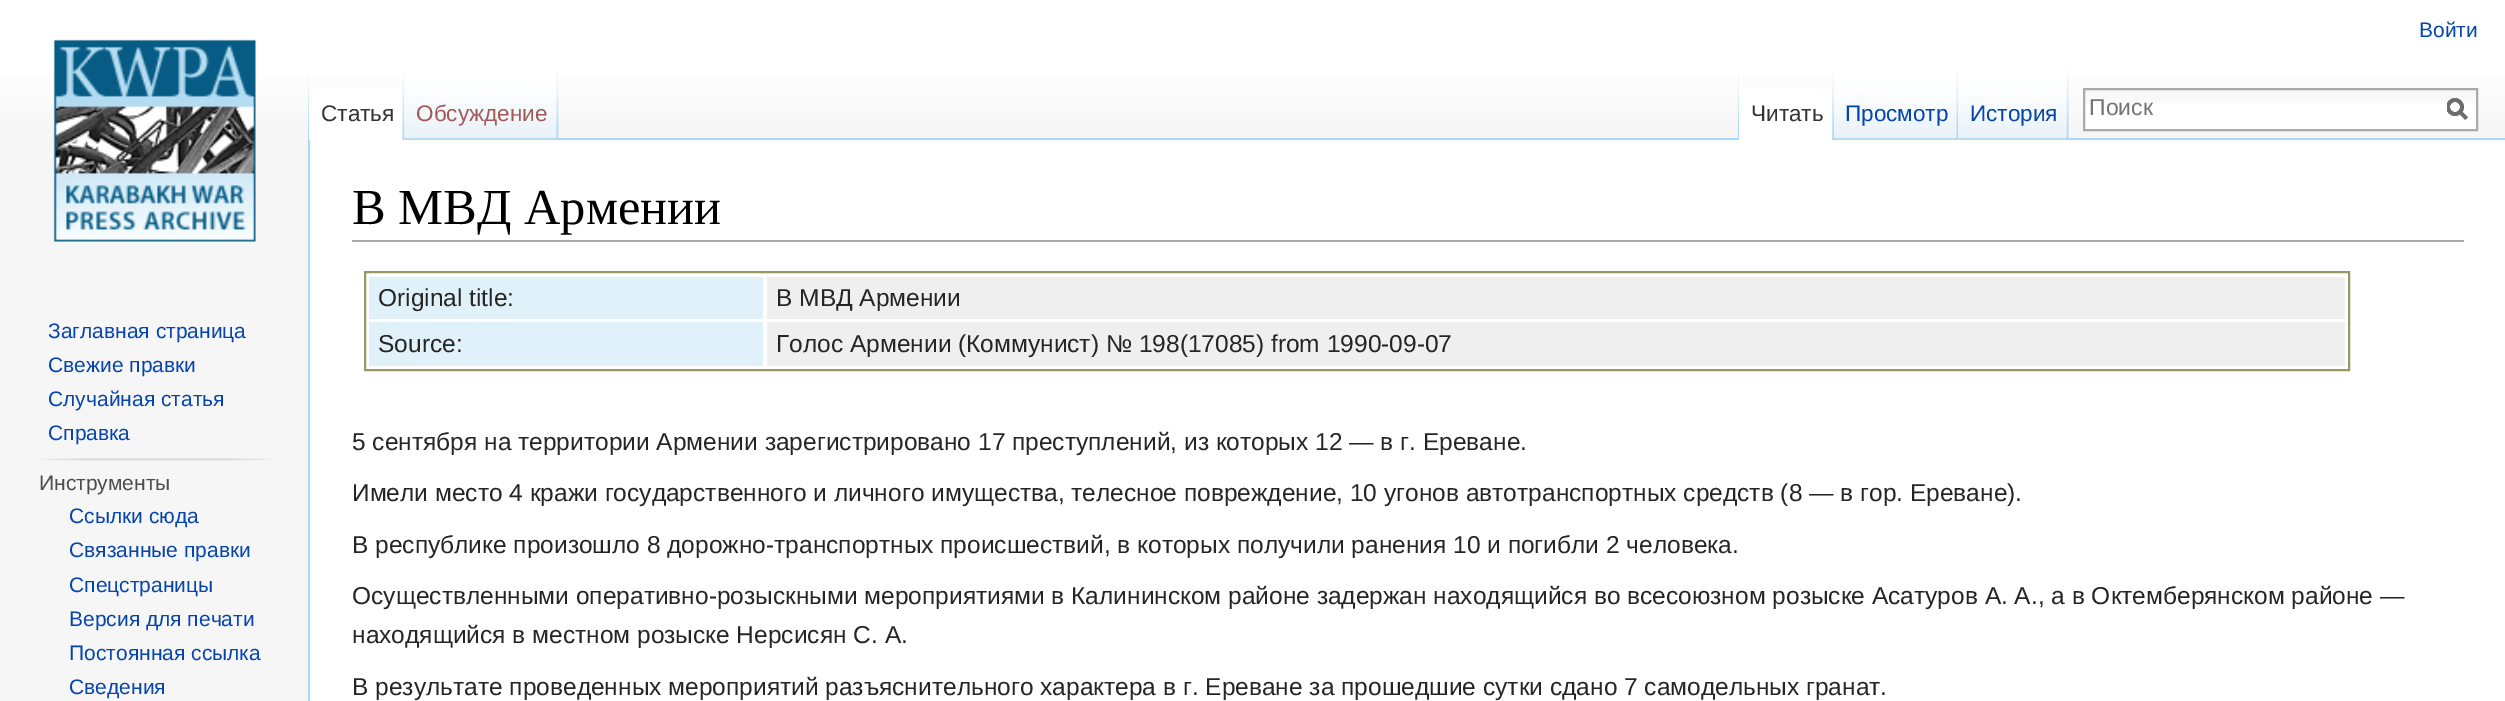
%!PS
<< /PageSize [2505 701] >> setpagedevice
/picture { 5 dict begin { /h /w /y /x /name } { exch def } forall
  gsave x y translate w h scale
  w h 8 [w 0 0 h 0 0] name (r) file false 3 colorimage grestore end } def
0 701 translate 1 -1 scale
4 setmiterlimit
0.965 setgray
0 0 2505 701 rectfill
gsave newpath 0 0 moveto 2505 0 lineto 2505 121 lineto 0 121 lineto closepath clip newpath
<< /ShadingType 2 /ColorSpace /DeviceRGB /Coords [1253 0 1253 140] /Extend [true true] /Function << /FunctionType 3 /Domain [0 1] /Functions [<< /FunctionType 2 /Domain [0 1] /C0 [1 1 1] /C1 [1 1 1] /N 1 >> << /FunctionType 2 /Domain [0 1] /C0 [1 1 1] /C1 [0.965 0.965 0.965] /N 1 >>] /Bounds [0.5] /Encode [0 1 0 1] >> >> shfill grestore
/LiberationSans-Regular [21 0 0 -21 0 0] selectfont
0.024 0.271 0.678 setrgbcolor
2419 37 moveto (Войти) show
(img1.rgb) 308 70 1 68 picture
(img2.rgb) 558 70 1 68 picture
0.655 0.843 0.976 setrgbcolor
308 138 2 563 rectfill
1 setgray
309 89 96 51 rectfill
(img3.rgb) 402 71 3 69 picture
/LiberationSans-Regular [22.5 0 0 -22.5 0 0] selectfont
0.2 setgray
321 121 moveto (Статья) show
0.655 0.843 0.976 setrgbcolor
558 138 1947 2 rectfill
(img4.rgb) 404 70 155 70 picture
(img5.rgb) 556 71 3 68 picture
0.647 0.345 0.345 setrgbcolor
416 121 moveto (Обсуждение) show
(img6.rgb) 1737 70 2 68 picture
1 setgray
1739 89 95 51 rectfill
(img7.rgb) 1832 71 2 69 picture
0.2 setgray
1751 121 moveto (Читать) show
(img8.rgb) 1834 70 124 70 picture
(img9.rgb) 1956 71 2 68 picture
0.024 0.271 0.678 setrgbcolor
1845 121 moveto (Просмотр) show
0.953 setgray
1958 70 111 70 rectfill
(img10.rgb) 1958 70 111 70 picture
(img11.rgb) 2066 71 3 69 picture
0.024 0.271 0.678 setrgbcolor
1970 121 moveto (История) show
1 setgray
2085 104 391 25 rectfill
(img12.rgb) 2085 90 391 14 picture
0.667 setgray
2 setlinewidth
2084 89 393 41 rectstroke
0.424 setgray
3.5 setlinewidth
newpath 2466.5 118.5 moveto 2459.5 111.5 lineto stroke
gsave
2447 98 21 23 rectclip
newpath 2455 107 7 0 360 arc closepath stroke
grestore
/LiberationSans-Regular [23 0 0 -23 0 0] selectfont
0.459 setgray
2089 115 moveto (Поиск) show
0.424 setgray
newpath 2466.5 118.5 moveto 2459.5 111.5 lineto stroke
gsave
2447 98 21 23 rectclip
newpath 2455 107 7 0 360 arc closepath stroke
grestore
(img13.rgb) 53 39 203 203 picture
/LiberationSans-Regular [21 0 0 -21 0 0] selectfont
0.024 0.271 0.678 setrgbcolor
48 338 moveto (Заглавная страница) show
48 372 moveto (Свежие правки) show
48 406 moveto (Случайная статья) show
48 440 moveto (Справка) show
(img14.rgb) 38 458 237 3 picture
0.302 setgray
39 490 moveto (Инструменты) show
0.024 0.271 0.678 setrgbcolor
69 523 moveto (Ссылки сюда) show
69 557 moveto (Связанные правки) show
69 592 moveto (Спецстраницы) show
69 626 moveto (Версия для печати) show
69 660 moveto (Постоянная ссылка) show
69 694 moveto (Сведения) show
1 setgray
310 140 2195 561 rectfill
0.667 setgray
352 240 2112 2 rectfill
/LiberationSerif-Regular [50.5 0 0 -50.5 0 0] selectfont
0 setgray
352 224 moveto (В МВД Армении) show
0.6 0.6 0.4 setrgbcolor
2 setlinewidth
365 272 1984 98 rectstroke
0.882 0.945 0.976 setrgbcolor
369 277 394 42 rectfill
/LiberationSans-Regular [24.5 0 0 -24.5 0 0] selectfont
0.145 setgray
378 306 moveto (Original title:) show
0.937 setgray
767 277 1578 42 rectfill
0.145 setgray
776 306 moveto (В МВД Армении) show
0.882 0.945 0.976 setrgbcolor
369 322 394 44 rectfill
0.145 setgray
378 352 moveto (Source:) show
0.937 setgray
767 322 1578 44 rectfill
0.145 setgray
776 352 moveto (Голос Армении \(Коммунист\) № 198\(17085\) from 1990-09-07) show
352 450 moveto (5 сентября на территории Армении зарегистрировано 17 преступлений, из которых 12 — в г. Ереване.) show
352 501 moveto (Имели место 4 кражи государственного и личного имущества, телесное повреждение, 10 угонов автотранспортных средств \(8 — в гор. Ереване\).) show
352 553 moveto (В республике произошло 8 дорожно-транспортных происшествий, в которых получили ранения 10 и погибли 2 человека.) show
352 604 moveto (Осуществленными оперативно-розыскными мероприятиями в Калининском районе задержан находящийся во всесоюзном розыске Асатуров А. А., а в Октемберянском районе —) show
352 643 moveto (находящийся в местном розыске Нерсисян С. А.) show
352 695 moveto (В результате проведенных мероприятий разъяснительного характера в г. Ереване за прошедшие сутки сдано 7 самодельных гранат.) show
showpage
